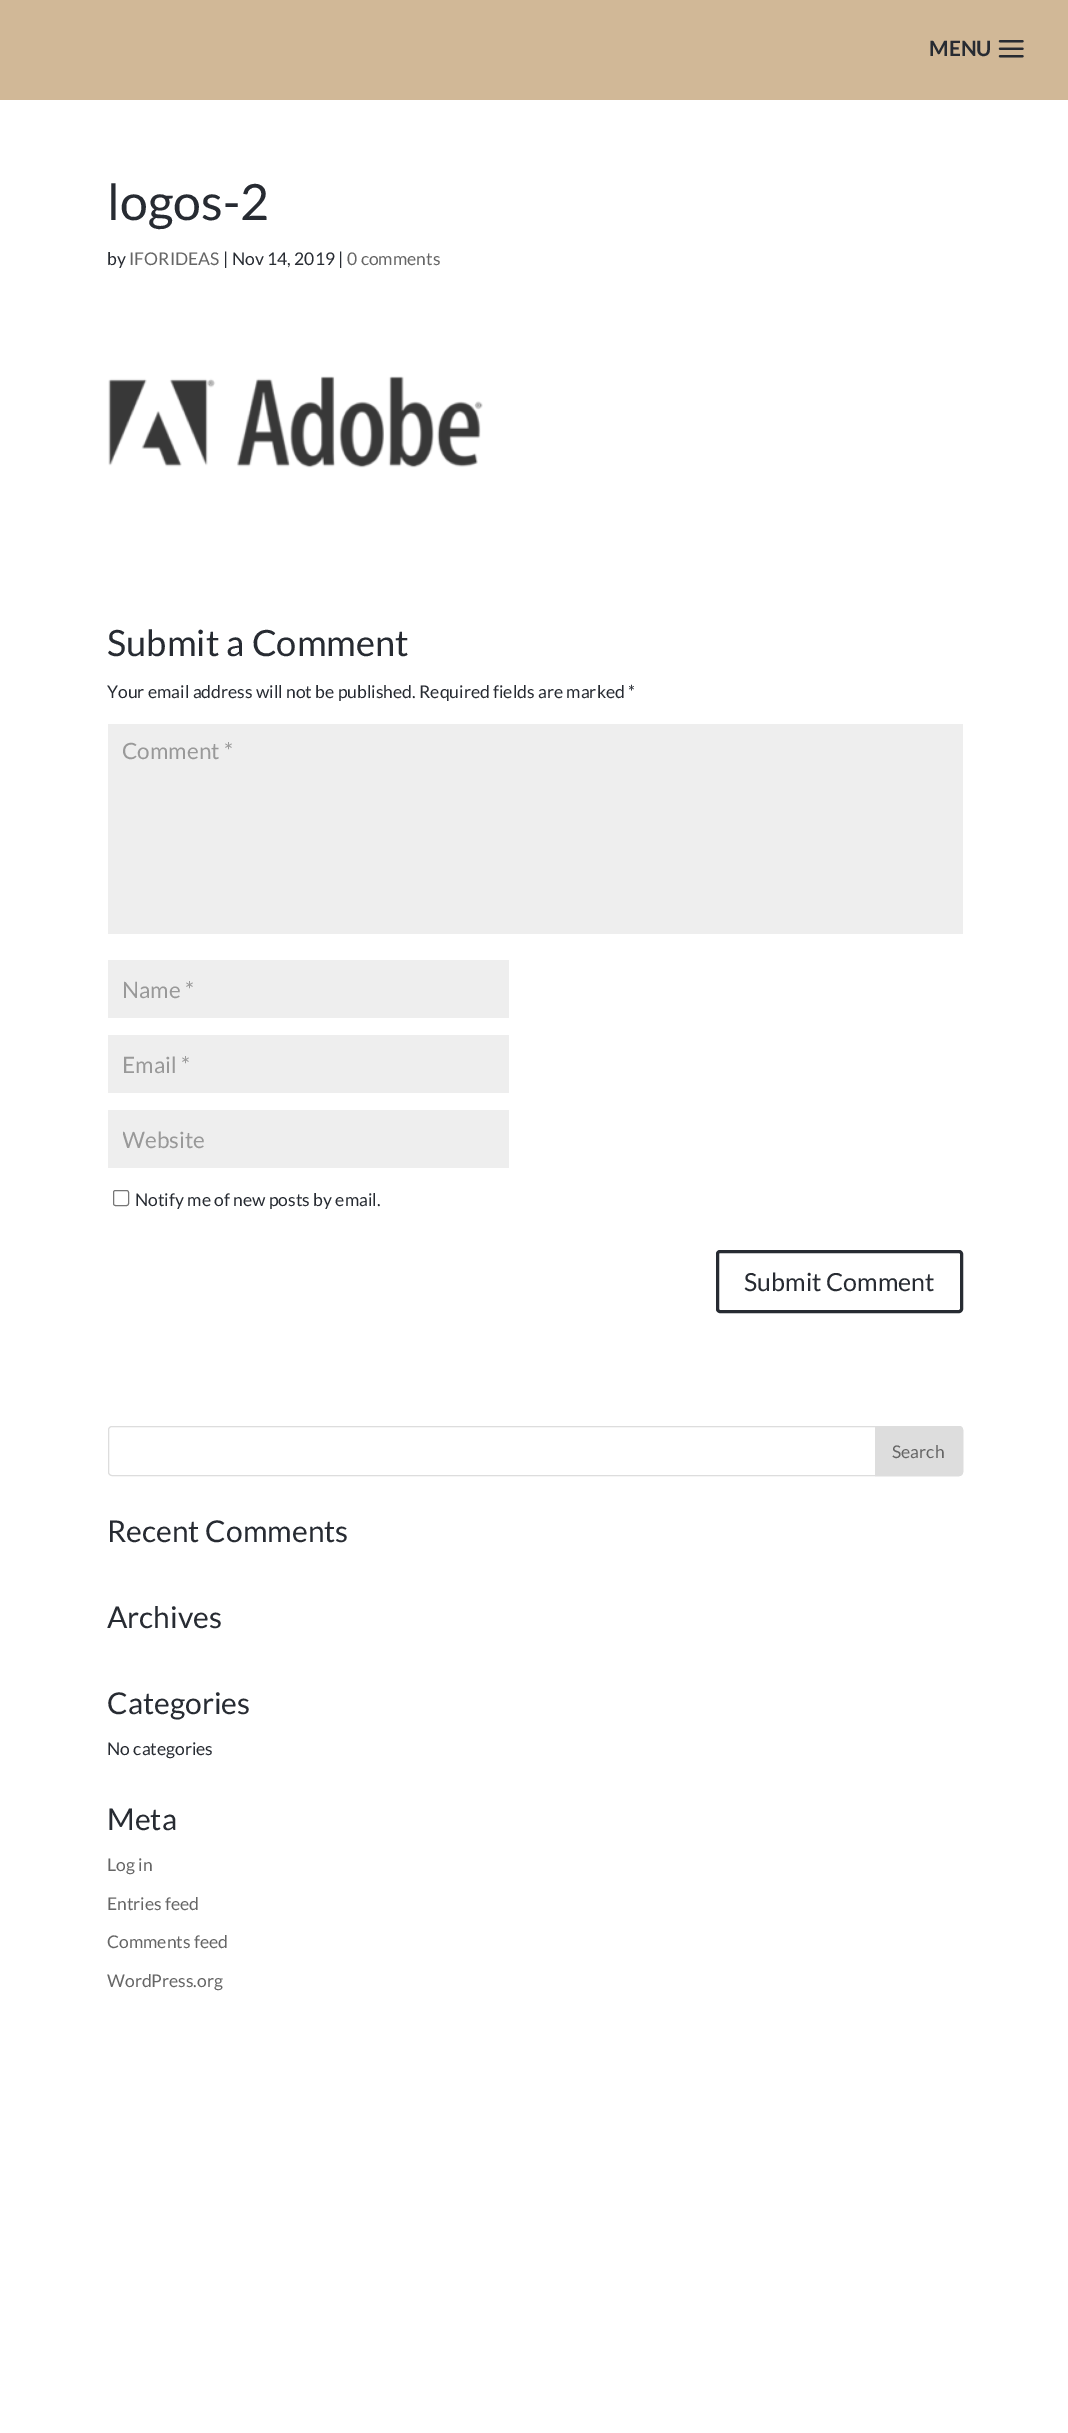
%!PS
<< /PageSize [1068 2433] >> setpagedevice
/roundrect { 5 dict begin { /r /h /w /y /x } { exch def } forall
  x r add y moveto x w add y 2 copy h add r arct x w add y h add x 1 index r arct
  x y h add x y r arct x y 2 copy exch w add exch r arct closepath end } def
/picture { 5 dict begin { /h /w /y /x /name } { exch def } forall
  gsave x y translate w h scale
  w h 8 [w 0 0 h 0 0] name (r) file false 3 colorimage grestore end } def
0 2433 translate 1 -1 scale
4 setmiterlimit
1 setgray
0 0 1068 2433 rectfill
0.82 0.722 0.592 setrgbcolor
0 0 1068 100 rectfill
/Lato-Bold [21 0 0 -21 0 0] selectfont
0.153 0.169 0.196 setrgbcolor
929 56 moveto (MENU) show
(img1.rgb) 998 40 26 18 picture
/Lato-Regular [50 0 0 -50 0 0] selectfont
107 220 moveto (logos-2) show
/Lato-Regular [17.5 0 0 -17.5 0 0] selectfont
107 265 moveto (by) show
0.4 setgray
129 265 moveto (IFORIDEAS) show
0.153 0.169 0.196 setrgbcolor
223 265 moveto (| Nov 14, 2019 |) show
0.4 setgray
347 265 moveto (0 comments) show
(img2.rgb) 108 376 375 92 picture
/Lato-Regular [36.25 0 0 -36.25 0 0] selectfont
0.153 0.169 0.196 setrgbcolor
107 656 moveto (Submit a Comment) show
/Lato-Regular [17.5 0 0 -17.5 0 0] selectfont
107 698 moveto (Your email address will not be published. Required fields are marked *) show
0.933 setgray
108 724 855 210 rectfill
/Lato-Regular [22.5 0 0 -22.5 0 0] selectfont
0.6 setgray
122 759 moveto (Comment *) show
0.933 setgray
108 960 401 58 rectfill
0.6 setgray
122 998 moveto (Name *) show
0.933 setgray
108 1035 401 58 rectfill
0.6 setgray
122 1073 moveto (Email *) show
0.933 setgray
108 1110 401 58 rectfill
gsave
123 1125 371 28 rectclip
0.6 setgray
122 1148 moveto (Website) show
grestore
0.463 setgray
113.5 1190.5 15 15 2 roundrect stroke
/Lato-Regular [17.5 0 0 -17.5 0 0] selectfont
0.153 0.169 0.196 setrgbcolor
135 1206 moveto (Notify me of new posts by email.) show
3 setlinewidth
717.5 1251.5 244 60 2.5 roundrect stroke
/Lato-Regular [25 0 0 -25 0 0] selectfont
744 1291 moveto (Submit Comment) show
0.867 setgray
1 setlinewidth
108.5 1426.5 854 49 3.5 roundrect stroke
newpath 875.5 1426.5 moveto 959 1426.5 lineto 961 1426.5 962.5 1428 962.5 1430 curveto 962.5 1472 lineto 962.5 1474 961 1475.5 959 1475.5 curveto 875.5 1475.5 lineto closepath gsave fill grestore
stroke
/Lato-Regular [17.5 0 0 -17.5 0 0] selectfont
0.4 setgray
892 1458 moveto (Search) show
/Lato-Regular [30 0 0 -30 0 0] selectfont
0.153 0.169 0.196 setrgbcolor
107 1542 moveto (Recent Comments) show
107 1628 moveto (Archives) show
107 1714 moveto (Categories) show
/Lato-Regular [17.5 0 0 -17.5 0 0] selectfont
107 1755 moveto (No categories) show
/Lato-Regular [30 0 0 -30 0 0] selectfont
107 1830 moveto (Meta) show
/Lato-Regular [17.5 0 0 -17.5 0 0] selectfont
0.4 setgray
107 1871 moveto (Log in) show
107 1910 moveto (Entries feed) show
107 1948 moveto (Comments feed) show
107 1987 moveto (WordPress.org) show
showpage
